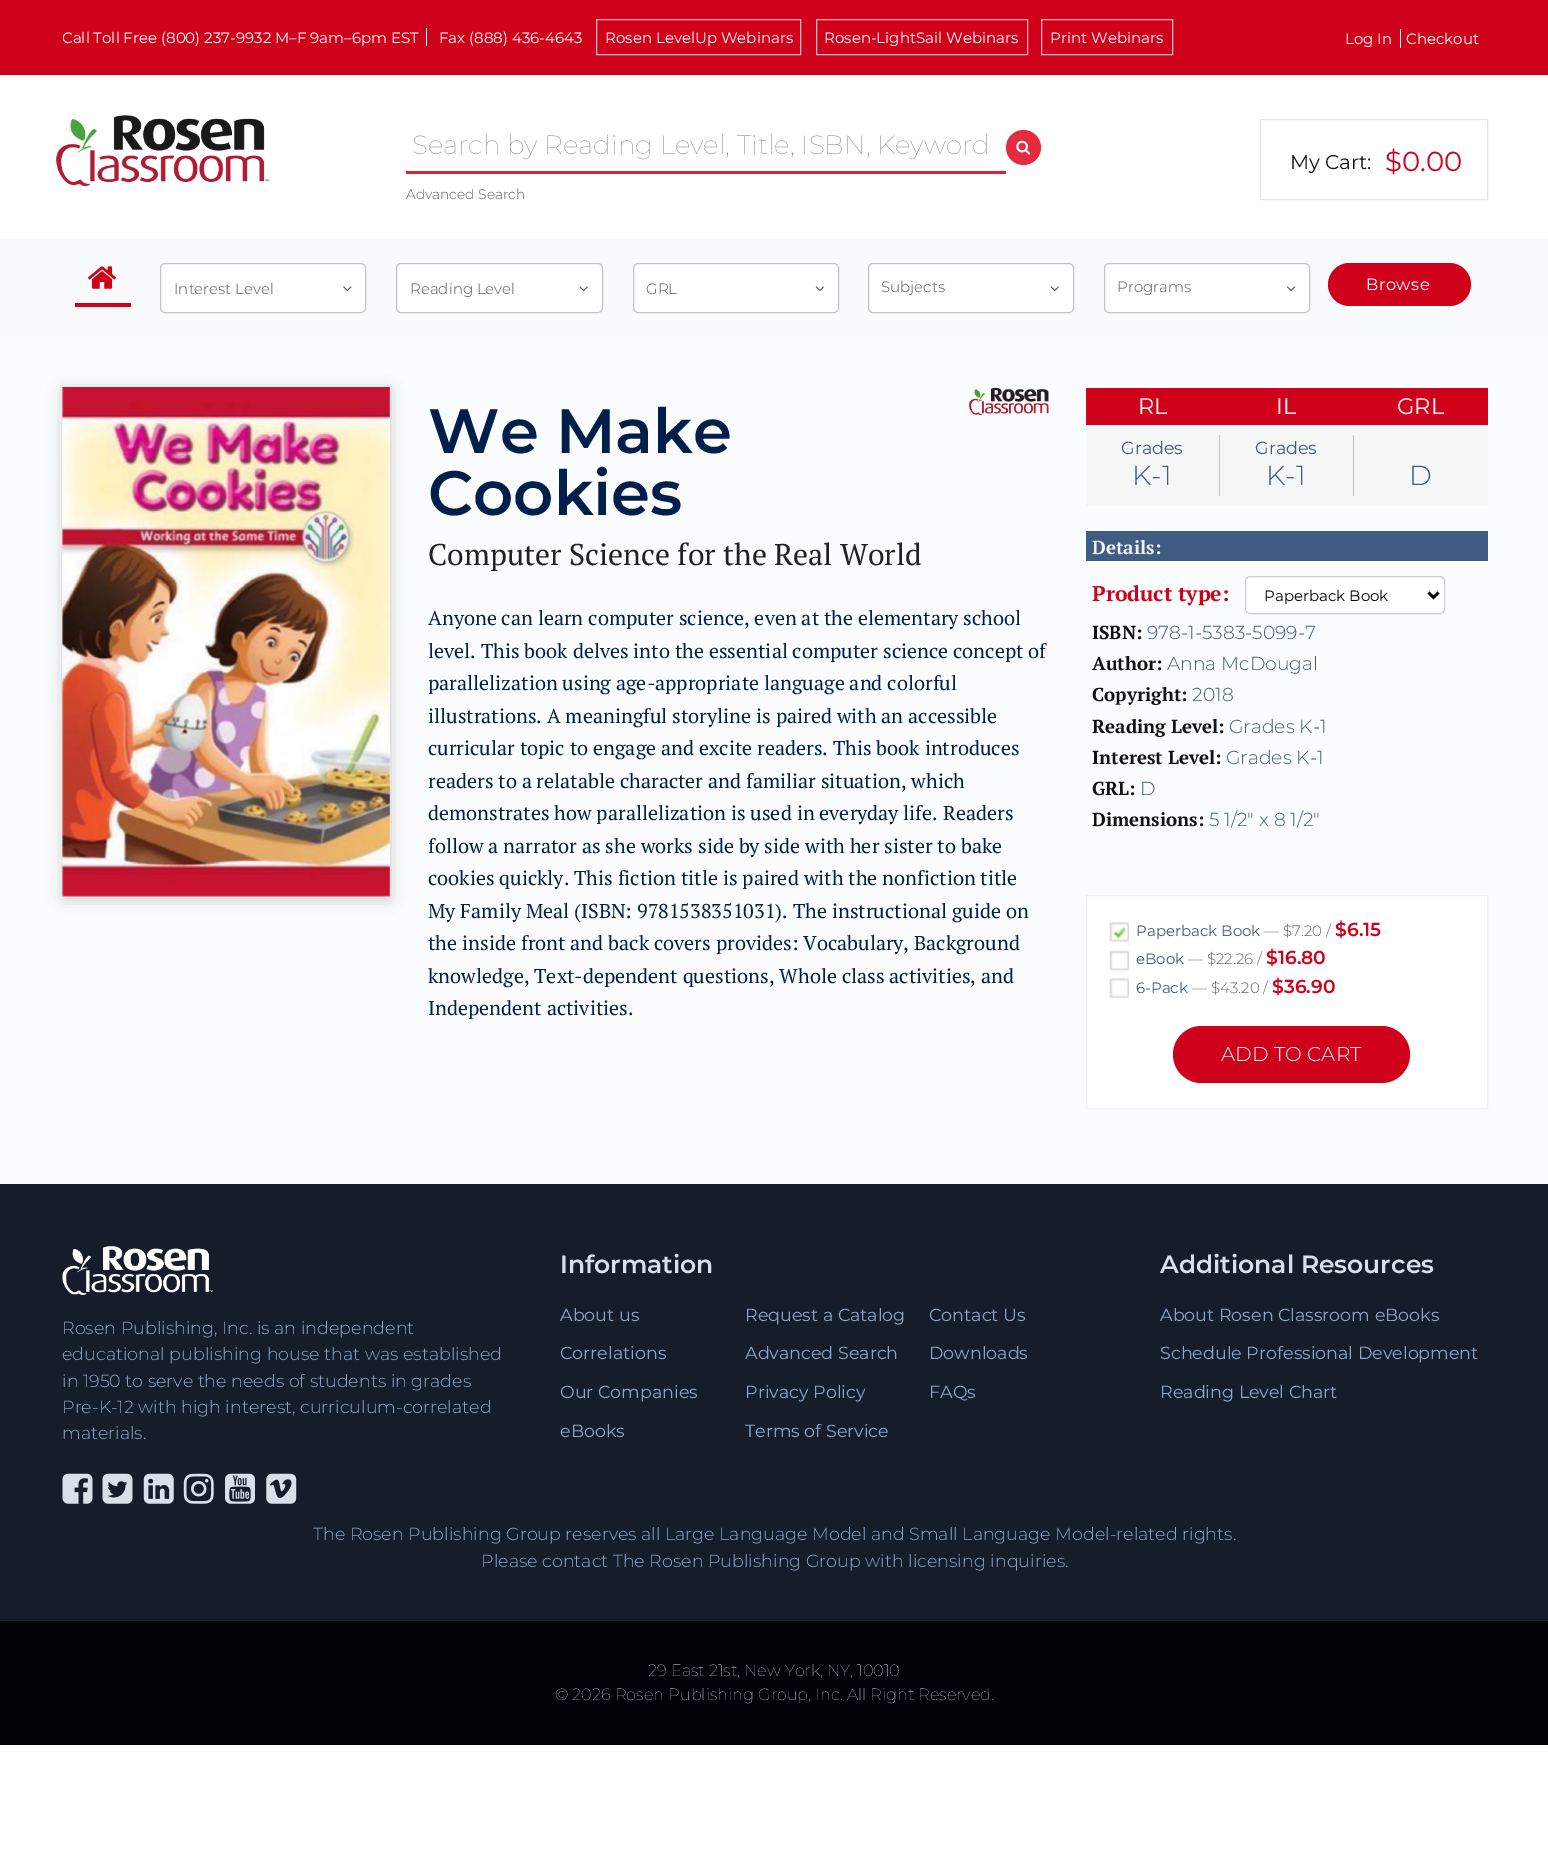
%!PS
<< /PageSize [1548 1868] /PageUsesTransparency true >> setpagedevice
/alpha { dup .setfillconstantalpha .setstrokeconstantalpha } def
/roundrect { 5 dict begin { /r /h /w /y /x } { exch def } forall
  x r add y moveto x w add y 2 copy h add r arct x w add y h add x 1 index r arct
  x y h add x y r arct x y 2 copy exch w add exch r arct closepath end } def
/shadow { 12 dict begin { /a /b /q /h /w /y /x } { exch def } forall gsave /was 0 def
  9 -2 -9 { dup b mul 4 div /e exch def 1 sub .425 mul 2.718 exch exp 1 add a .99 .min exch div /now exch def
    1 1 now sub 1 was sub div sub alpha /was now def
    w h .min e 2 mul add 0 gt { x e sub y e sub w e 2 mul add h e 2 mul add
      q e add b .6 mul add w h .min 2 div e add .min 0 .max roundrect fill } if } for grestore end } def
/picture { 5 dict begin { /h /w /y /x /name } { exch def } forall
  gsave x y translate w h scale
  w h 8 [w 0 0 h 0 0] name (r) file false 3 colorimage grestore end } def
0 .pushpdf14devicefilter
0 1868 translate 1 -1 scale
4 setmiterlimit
1 setgray
0 0 1548 1868 rectfill
0.984 0.988 0.992 setrgbcolor
0 339 1548 845 rectfill
0.816 0.008 0.106 setrgbcolor
0 0 1548 75 rectfill
gsave
63 0 1425 75 rectclip
/Montserrat-Regular [15 0 0 -15 0 0] selectfont
1 setgray
62 43 moveto (Call Toll Free \(800\) 237-9932 M–F 9am–6pm EST) show
grestore
1 setgray
426 28 1 18 rectfill
/Montserrat-Regular [15 0 0 -15 0 0] selectfont
439 43 moveto (Fax \(888\) 436-4643) show
1 0.714 0.749 setrgbcolor
596.5 19.5 204 35 rectstroke
1 setgray
605 43 moveto (Rosen LevelUp Webinars) show
1 0.714 0.749 setrgbcolor
816.5 19.5 211 35 rectstroke
1 setgray
824 43 moveto (Rosen-LightSail Webinars) show
1 0.714 0.749 setrgbcolor
1041.5 19.5 131 35 rectstroke
1 setgray
1050 43 moveto (Print Webinars) show
1345 44 moveto (Log In) show
1400 29 1 19 rectfill
1406 44 moveto (Checkout) show
(img1.rgb) 56 115 213 71 picture
0.871 0.125 0.208 setrgbcolor
406 171 600 3 rectfill
/Montserrat-Thin [26.25 0 0 -26.25 0 0] selectfont
0.506 setgray
412 154 moveto (Search by Reading Level, Title, ISBN, Keyword) show
0.89 0.173 0.247 setrgbcolor
newpath 1023.5 147.5 17.5 0 360 arc closepath fill
(img2.rgb) 1016 140 15 15 picture
/Montserrat-Light [13.75 0 0 -13.75 0 0] selectfont
0.357 setgray
406 199 moveto (Advanced Search) show
0.898 0.906 0.91 setrgbcolor
1260.5 119.5 227 80 rectstroke
/Montserrat-Regular [20 0 0 -20 0 0] selectfont
0.071 setgray
1290 169 moveto (My Cart:) show
/Montserrat-Regular [27.5 0 0 -27.5 0 0] selectfont
0.816 0.008 0.106 setrgbcolor
1385 171 moveto ($0.00) show
0.973 0.98 0.984 setrgbcolor
0 239 1548 100 rectfill
0.816 0.008 0.106 setrgbcolor
75 303 56 4 rectfill
(img3.rgb) 88 266 28 23 picture
1 setgray
160.5 263.5 205 49 4.5 roundrect gsave fill grestore
0.769 setgray
stroke
/Montserrat-Light [15 0 0 -15 0 0] selectfont
0.333 setgray
174 294 moveto (Interest Level) show
(img4.rgb) 343 286 9 6 picture
1 setgray
396.5 263.5 206 49 4.5 roundrect gsave fill grestore
0.769 setgray
stroke
0.333 setgray
410 294 moveto (Reading Level) show
(img5.rgb) 579 286 9 6 picture
1 setgray
633.5 263.5 205 49 4.5 roundrect gsave fill grestore
0.769 setgray
stroke
0.333 setgray
646 294 moveto (GRL) show
(img6.rgb) 815 286 9 6 picture
1 setgray
868.5 263.5 205 49 4.5 roundrect gsave fill grestore
0.769 setgray
stroke
0.333 setgray
881 292 moveto (Subjects) show
(img6.rgb) 1050 286 9 6 picture
1 setgray
1104.5 263.5 205 49 4.5 roundrect gsave fill grestore
0.769 setgray
stroke
0.333 setgray
1117 292 moveto (Programs) show
(img7.rgb) 1287 286 9 6 picture
0.816 0.008 0.106 setrgbcolor
1328 263 143 43 21.5 roundrect fill
/Montserrat-Regular [16.25 0 0 -16.25 0 0] selectfont
1 setgray
1366 290 moveto 0.5 0 (Browse) ashow
0 setgray
63 390 327 509 0 7.5 0.21 shadow
(img8.rgb) 62 387 328 510 picture
(img9.rgb) 968 387 81 28 picture
/Montserrat-SemiBold [62.5 0 0 -62.5 0 0] selectfont
0.008 0.118 0.29 setrgbcolor
428 453 moveto (We Make) show
428 515 moveto (Cookies) show
/PTSerif-Regular [30 0 0 -30 0 0] selectfont
0.133 setgray
428 565 moveto (Computer Science for the Real World) show
/PTSerif-Regular [20 0 0 -20 0 0] selectfont
0.008 0.118 0.29 setrgbcolor
428 625 moveto (Anyone can learn computer science, even at the elementary school) show
428 658 moveto (level. This book delves into the essential computer science concept of) show
428 690 moveto (parallelization using age-appropriate language and colorful) show
428 723 moveto (illustrations. A meaningful storyline is paired with an accessible) show
428 755 moveto (curricular topic to engage and excite readers. This book introduces) show
428 788 moveto (readers to a relatable character and familiar situation, which) show
428 820 moveto (demonstrates how parallelization is used in everyday life. Readers) show
428 853 moveto (follow a narrator as she works side by side with her sister to bake) show
428 885 moveto (cookies quickly. This fiction title is paired with the nonfiction title) show
428 918 moveto (My Family Meal \(ISBN: 9781538351031\). The instructional guide on) show
428 950 moveto (the inside front and back covers provides: Vocabulary, Background) show
428 983 moveto (knowledge, Text-dependent questions, Whole class activities, and) show
428 1015 moveto (Independent activities.) show
0.961 0.969 0.969 setrgbcolor
1086 425 402 81 rectfill
0.816 0.008 0.106 setrgbcolor
1086 388 402 37 rectfill
/Montserrat-Regular [22.5 0 0 -22.5 0 0] selectfont
1 setgray
1138 414 moveto (RL) show
0.749 0.78 0.784 setrgbcolor
1219 435 1 61 rectfill
/Montserrat-Regular [17.5 0 0 -17.5 0 0] selectfont
0.251 0.361 0.514 setrgbcolor
1121 454 moveto (Grades) show
/Montserrat-Light [27.5 0 0 -27.5 0 0] selectfont
1132 485 moveto (K-1) show
/Montserrat-Regular [22.5 0 0 -22.5 0 0] selectfont
1 setgray
1276 414 moveto (IL) show
0.749 0.78 0.784 setrgbcolor
1353 435 1 61 rectfill
/Montserrat-Regular [17.5 0 0 -17.5 0 0] selectfont
0.251 0.361 0.514 setrgbcolor
1255 454 moveto (Grades) show
/Montserrat-Light [27.5 0 0 -27.5 0 0] selectfont
1266 485 moveto (K-1) show
/Montserrat-Regular [22.5 0 0 -22.5 0 0] selectfont
1 setgray
1397 414 moveto (GRL) show
/Montserrat-Light [27.5 0 0 -27.5 0 0] selectfont
0.251 0.361 0.514 setrgbcolor
1409 485 moveto (D) show
1086 531 402 30 rectfill
/PTSerif-Bold [18.75 0 0 -18.75 0 0] selectfont
0.937 0.949 0.969 setrgbcolor
1092 554 moveto (Details:) show
/PTSerif-Bold [21.25 0 0 -21.25 0 0] selectfont
0.816 0.008 0.106 setrgbcolor
1092 601 moveto (Product type:) show
1 setgray
1245.5 576.5 199 37 4.5 roundrect gsave fill grestore
0.804 setgray
stroke
0 setgray
2.5 setlinewidth
newpath 1428.5 592.5 moveto 1433.5 597.5 lineto 1438.5 592.5 lineto stroke
/Montserrat-Regular [15 0 0 -15 0 0] selectfont
1264 601 moveto (Paperback Book) show
/PTSerif-Bold [18.75 0 0 -18.75 0 0] selectfont
0.071 setgray
1092 639 moveto (ISBN:) show
/Montserrat-Light [18.75 0 0 -18.75 0 0] selectfont
0.251 0.361 0.514 setrgbcolor
1147 639 moveto (978-1-5383-5099-7) show
/PTSerif-Bold [18.75 0 0 -18.75 0 0] selectfont
0.071 setgray
1092 670 moveto (Author:) show
/Montserrat-Light [18.75 0 0 -18.75 0 0] selectfont
0.251 0.361 0.514 setrgbcolor
1167 670 moveto (Anna McDougal) show
/PTSerif-Bold [18.75 0 0 -18.75 0 0] selectfont
0.071 setgray
1092 701 moveto (Copyright:) show
/Montserrat-Light [18.75 0 0 -18.75 0 0] selectfont
0.251 0.361 0.514 setrgbcolor
1192 701 moveto (2018) show
/PTSerif-Bold [18.75 0 0 -18.75 0 0] selectfont
0.071 setgray
1092 733 moveto (Reading Level:) show
/Montserrat-Light [18.75 0 0 -18.75 0 0] selectfont
0.251 0.361 0.514 setrgbcolor
1229 733 moveto (Grades K-1) show
/PTSerif-Bold [18.75 0 0 -18.75 0 0] selectfont
0.071 setgray
1092 764 moveto (Interest Level:) show
/Montserrat-Light [18.75 0 0 -18.75 0 0] selectfont
0.251 0.361 0.514 setrgbcolor
1226 764 moveto (Grades K-1) show
/PTSerif-Bold [18.75 0 0 -18.75 0 0] selectfont
0.071 setgray
1092 795 moveto (GRL:) show
/Montserrat-Light [18.75 0 0 -18.75 0 0] selectfont
0.251 0.361 0.514 setrgbcolor
1140 795 moveto (D) show
/PTSerif-Bold [18.75 0 0 -18.75 0 0] selectfont
0.071 setgray
1092 826 moveto (Dimensions:) show
/Montserrat-Light [18.75 0 0 -18.75 0 0] selectfont
0.251 0.361 0.514 setrgbcolor
1209 826 moveto (5 1/2" x 8 1/2") show
1 setgray
newpath 1086.5 895.5 moveto 1487.5 895.5 lineto 1487.5 1108.5 lineto 1086.5 1108.5 lineto closepath gsave fill grestore
0.937 0.949 0.969 setrgbcolor
1 setlinewidth
stroke
(img10.rgb) 1109 922 20 20 picture
/Montserrat-Regular [15 0 0 -15 0 0] selectfont
0.251 0.361 0.514 setrgbcolor
1136 936 moveto (Paperback Book) show
/Montserrat-Light [15 0 0 -15 0 0] selectfont
0.4 setgray
1264 936 moveto (— $7.20 /) show
/Montserrat-SemiBold [18.75 0 0 -18.75 0 0] selectfont
0.816 0.008 0.106 setrgbcolor
1335 936 moveto ($6.15) show
(img11.rgb) 1109 950 20 21 picture
/Montserrat-Regular [15 0 0 -15 0 0] selectfont
0.251 0.361 0.514 setrgbcolor
1136 964 moveto (eBook) show
/Montserrat-Light [15 0 0 -15 0 0] selectfont
0.4 setgray
1188 964 moveto (— $22.26 /) show
/Montserrat-SemiBold [18.75 0 0 -18.75 0 0] selectfont
0.816 0.008 0.106 setrgbcolor
1266 964 moveto ($16.80) show
(img12.rgb) 1109 978 20 20 picture
/Montserrat-Regular [15 0 0 -15 0 0] selectfont
0.251 0.361 0.514 setrgbcolor
1136 993 moveto (6-Pack) show
/Montserrat-Light [15 0 0 -15 0 0] selectfont
0.4 setgray
1192 993 moveto (— $43.20 /) show
/Montserrat-SemiBold [18.75 0 0 -18.75 0 0] selectfont
0.816 0.008 0.106 setrgbcolor
1272 993 moveto ($36.90) show
1173 1026 237 57 28.5 roundrect fill
/Montserrat-Light [20 0 0 -20 0 0] selectfont
0.965 0.973 0.98 setrgbcolor
1221 1061 moveto 0.1 0 (ADD TO CART) ashow
0.082 0.114 0.165 setrgbcolor
0 1184 1548 437 rectfill
(img13.rgb) 62 1246 151 49 picture
/Montserrat-Light [17.5 0 0 -17.5 0 0] selectfont
0.541 0.643 0.78 setrgbcolor
62 1334 moveto (Rosen Publishing, Inc. is an independent) show
62 1360 moveto (educational publishing house that was established) show
62 1387 moveto (in 1950 to serve the needs of students in grades) show
62 1413 moveto (Pre-K-12 with high interest, curriculum-correlated) show
62 1439 moveto (materials.) show
(img14.rgb) 62 1473 31 31 picture
(img15.rgb) 102 1473 31 31 picture
(img16.rgb) 143 1473 31 31 picture
(img17.rgb) 183 1473 31 31 picture
(img18.rgb) 225 1473 30 31 picture
(img19.rgb) 266 1473 31 31 picture
/Montserrat-SemiBold [25 0 0 -25 0 0] selectfont
0.851 0.878 0.918 setrgbcolor
560 1273 moveto (Information) show
/Montserrat-Regular [17.5 0 0 -17.5 0 0] selectfont
0.541 0.643 0.78 setrgbcolor
560 1321 moveto (About us) show
745 1321 moveto (Request a Catalog) show
929 1321 moveto (Contact Us) show
560 1359 moveto (Correlations) show
745 1359 moveto (Advanced Search) show
929 1359 moveto (Downloads) show
560 1398 moveto (Our Companies) show
745 1398 moveto (Privacy Policy) show
929 1398 moveto (FAQs) show
560 1437 moveto (eBooks) show
745 1437 moveto (Terms of Service) show
/Montserrat-SemiBold [25 0 0 -25 0 0] selectfont
0.851 0.878 0.918 setrgbcolor
1160 1273 moveto (Additional Resources) show
/Montserrat-Regular [17.5 0 0 -17.5 0 0] selectfont
0.541 0.643 0.78 setrgbcolor
1160 1321 moveto (About Rosen Classroom eBooks) show
1160 1359 moveto (Schedule Professional Development) show
1160 1398 moveto (Reading Level Chart) show
/Montserrat-Light [17.5 0 0 -17.5 0 0] selectfont
313 1540 moveto (The Rosen Publishing Group reserves all Large Language Model and Small Language Model-related rights.) show
481 1567 moveto (Please contact The Rosen Publishing Group with licensing inquiries.) show
0 0.012 0.027 setrgbcolor
0 1621 1548 124 rectfill
/Montserrat-Thin [16.25 0 0 -16.25 0 0] selectfont
0.851 0.878 0.918 setrgbcolor
648 1676 moveto (29 East 21st, New York, NY, 10010) show
555 1700 moveto (© 2026 Rosen Publishing Group, Inc. All Right Reserved.) show
.poppdf14devicefilter showpage
